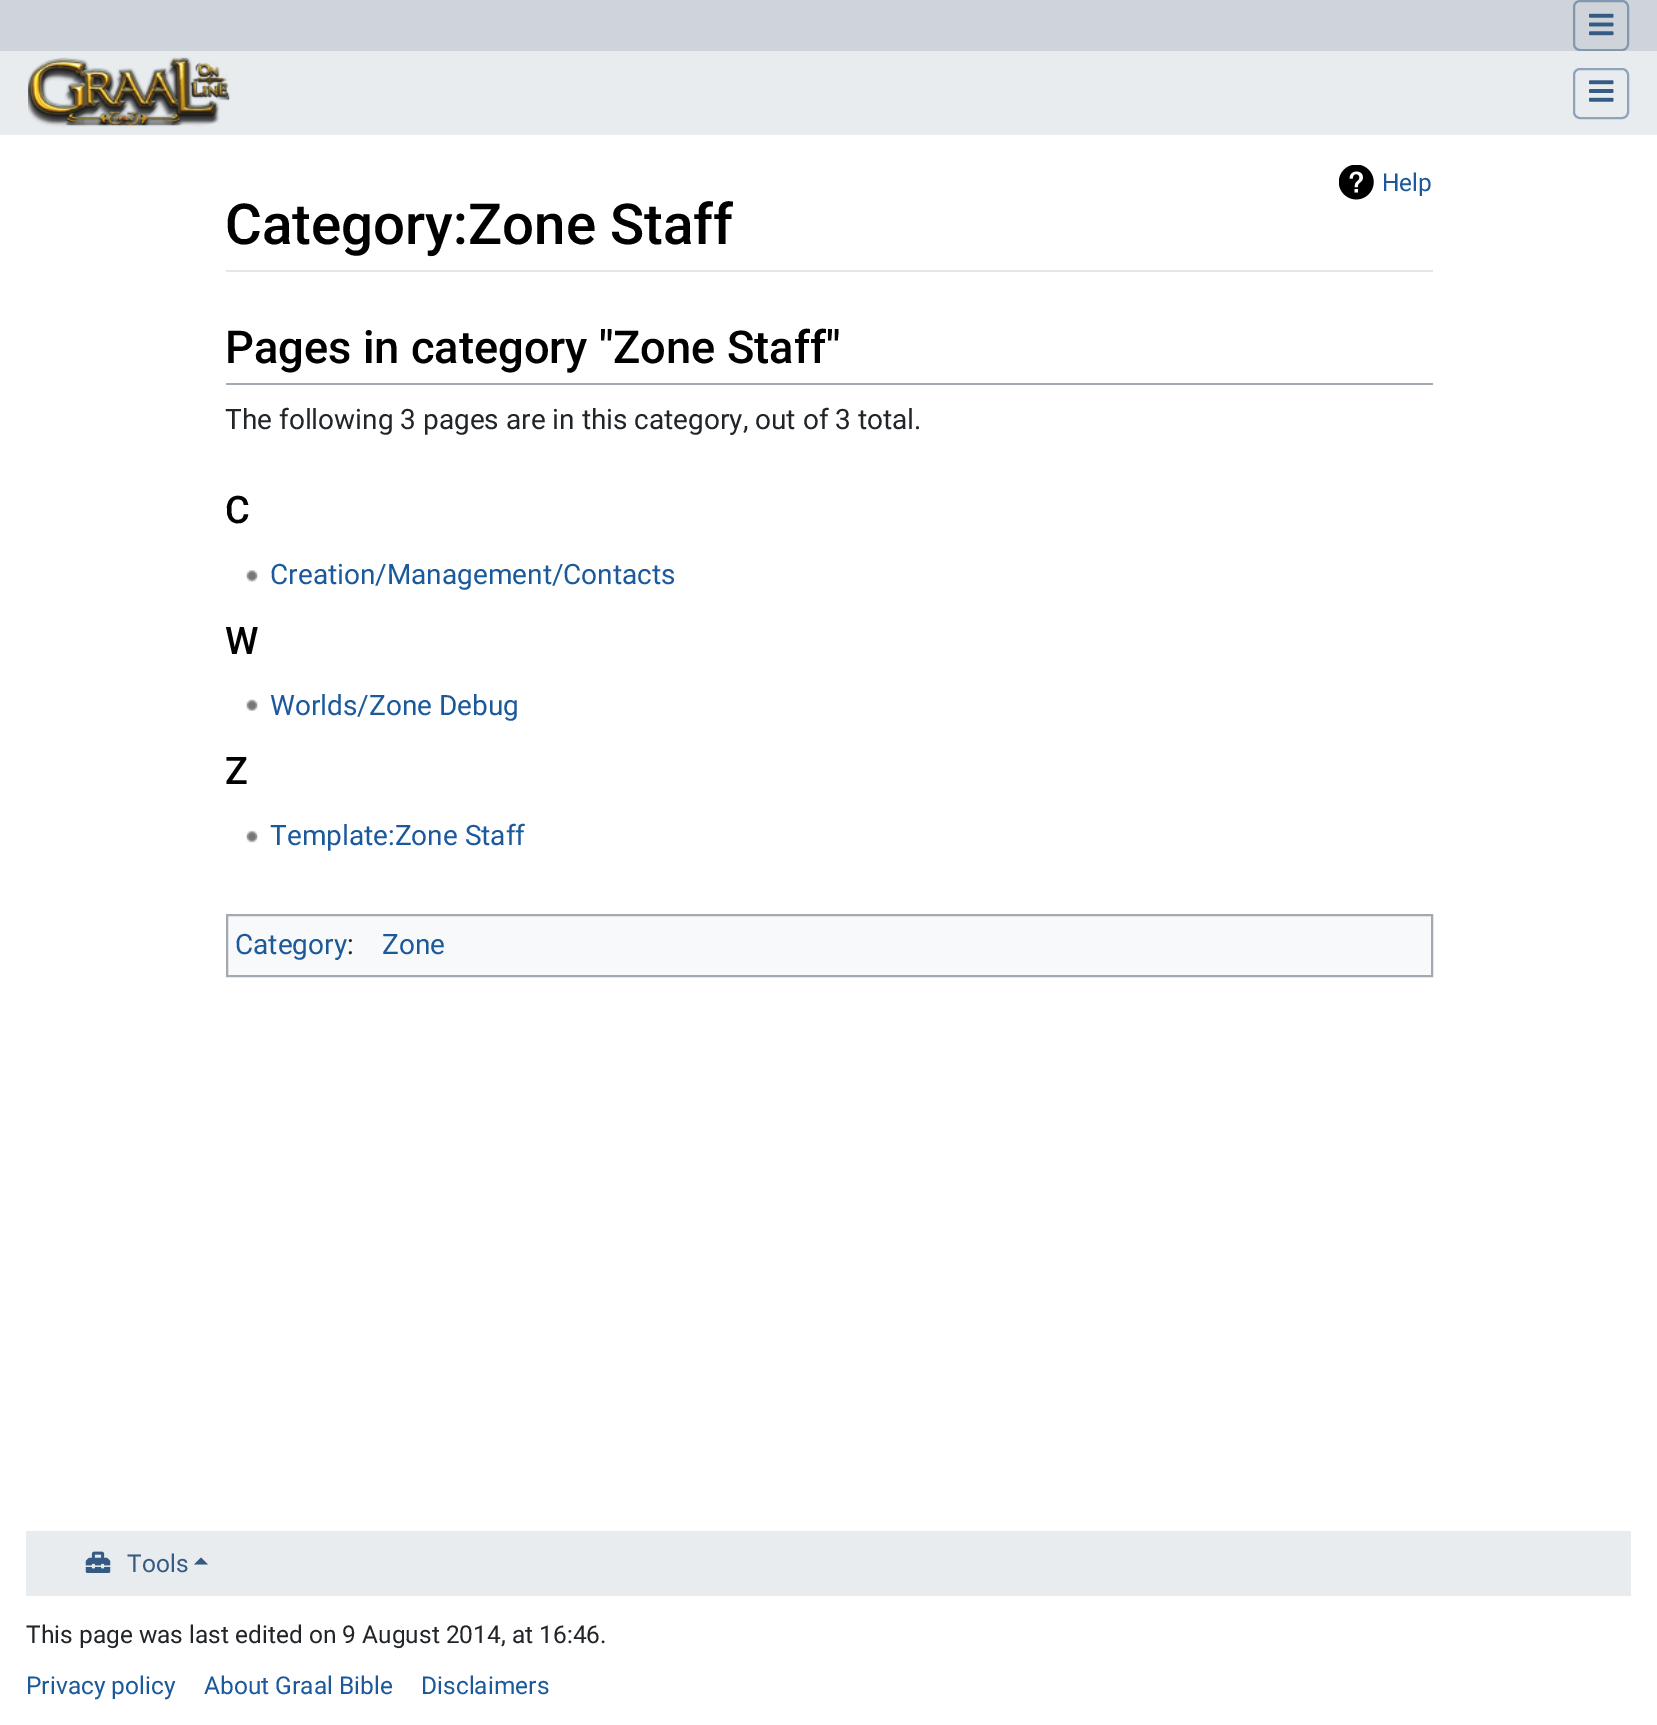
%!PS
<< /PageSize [1657 1725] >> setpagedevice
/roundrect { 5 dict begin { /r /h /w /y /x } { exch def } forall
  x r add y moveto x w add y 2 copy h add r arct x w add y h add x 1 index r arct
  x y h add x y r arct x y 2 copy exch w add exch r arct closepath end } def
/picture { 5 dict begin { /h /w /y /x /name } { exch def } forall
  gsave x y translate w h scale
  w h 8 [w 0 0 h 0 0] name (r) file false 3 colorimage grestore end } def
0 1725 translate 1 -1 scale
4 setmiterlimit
1 setgray
0 0 1657 1725 rectfill
0.808 0.831 0.855 setrgbcolor
0 0 1657 51 rectfill
0.51 0.596 0.686 setrgbcolor
2 setlinewidth
1574 1 54 49 6 roundrect stroke
(img1.rgb) 1589 13 25 23 picture
0.914 0.925 0.937 setrgbcolor
0 51 1657 84 rectfill
(img2.rgb) 28 57 202 71 picture
0.561 0.643 0.729 setrgbcolor
1574 69 54 49 6 roundrect stroke
(img3.rgb) 1589 80 25 22 picture
(img4.rgb) 1339 165 35 35 picture
/Roboto-Regular [24.5 0 0 -24.5 0 0] selectfont
0.106 0.349 0.608 setrgbcolor
1382 191 moveto (Help) show
0.902 setgray
226 270 1207 2 rectfill
/Roboto-Medium [56.5 0 0 -56.5 0 0] selectfont
0 setgray
225 244 moveto (Category:Zone Staff) show
0.635 0.663 0.694 setrgbcolor
226 383 1207 2 rectfill
/Roboto-Medium [45.25 0 0 -45.25 0 0] selectfont
0 setgray
225 363 moveto (Pages in category "Zone Staff") show
/Roboto-Regular [28 0 0 -28 0 0] selectfont
0.129 0.145 0.161 setrgbcolor
225 429 moveto (The following 3 pages are in this category, out of 3 total.) show
/Roboto-Medium [38 0 0 -38 0 0] selectfont
0 setgray
225 523 moveto (C) show
(img5.rgb) 246 570 12 12 picture
/Roboto-Regular [28 0 0 -28 0 0] selectfont
0.106 0.349 0.608 setrgbcolor
270 584 moveto (Creation/Management/Contacts) show
/Roboto-Medium [38 0 0 -38 0 0] selectfont
0 setgray
225 654 moveto (W) show
(img6.rgb) 246 699 12 12 picture
/Roboto-Regular [28 0 0 -28 0 0] selectfont
0.106 0.349 0.608 setrgbcolor
270 715 moveto (Worlds/Zone Debug) show
/Roboto-Medium [38 0 0 -38 0 0] selectfont
0 setgray
225 784 moveto (Z) show
(img7.rgb) 246 830 12 13 picture
/Roboto-Regular [28 0 0 -28 0 0] selectfont
0.106 0.349 0.608 setrgbcolor
270 845 moveto (Template:Zone Staff) show
0.973 0.976 0.98 setrgbcolor
newpath 227 915 moveto 1432 915 lineto 1432 976 lineto 227 976 lineto closepath gsave fill grestore
0.635 0.663 0.694 setrgbcolor
stroke
0.106 0.349 0.608 setrgbcolor
235 954 moveto (Category) show
0.129 0.145 0.161 setrgbcolor
347 954 moveto (:) show
0.106 0.349 0.608 setrgbcolor
382 954 moveto (Zone) show
0.914 0.925 0.937 setrgbcolor
26 1531 1605 65 rectfill
(img8.rgb) 85 1551 26 22 picture
/Roboto-Regular [24.5 0 0 -24.5 0 0] selectfont
0.208 0.357 0.518 setrgbcolor
127 1572 moveto (Tools) show
newpath 208 1564.5 moveto 194 1564.5 lineto 201 1557.5 lineto closepath fill
0.129 0.145 0.161 setrgbcolor
26 1643 moveto (This page was last edited on 9 August 2014, at 16:46.) show
0.106 0.349 0.608 setrgbcolor
26 1694 moveto (Privacy policy) show
204 1694 moveto (About Graal Bible) show
421 1694 moveto (Disclaimers) show
showpage
